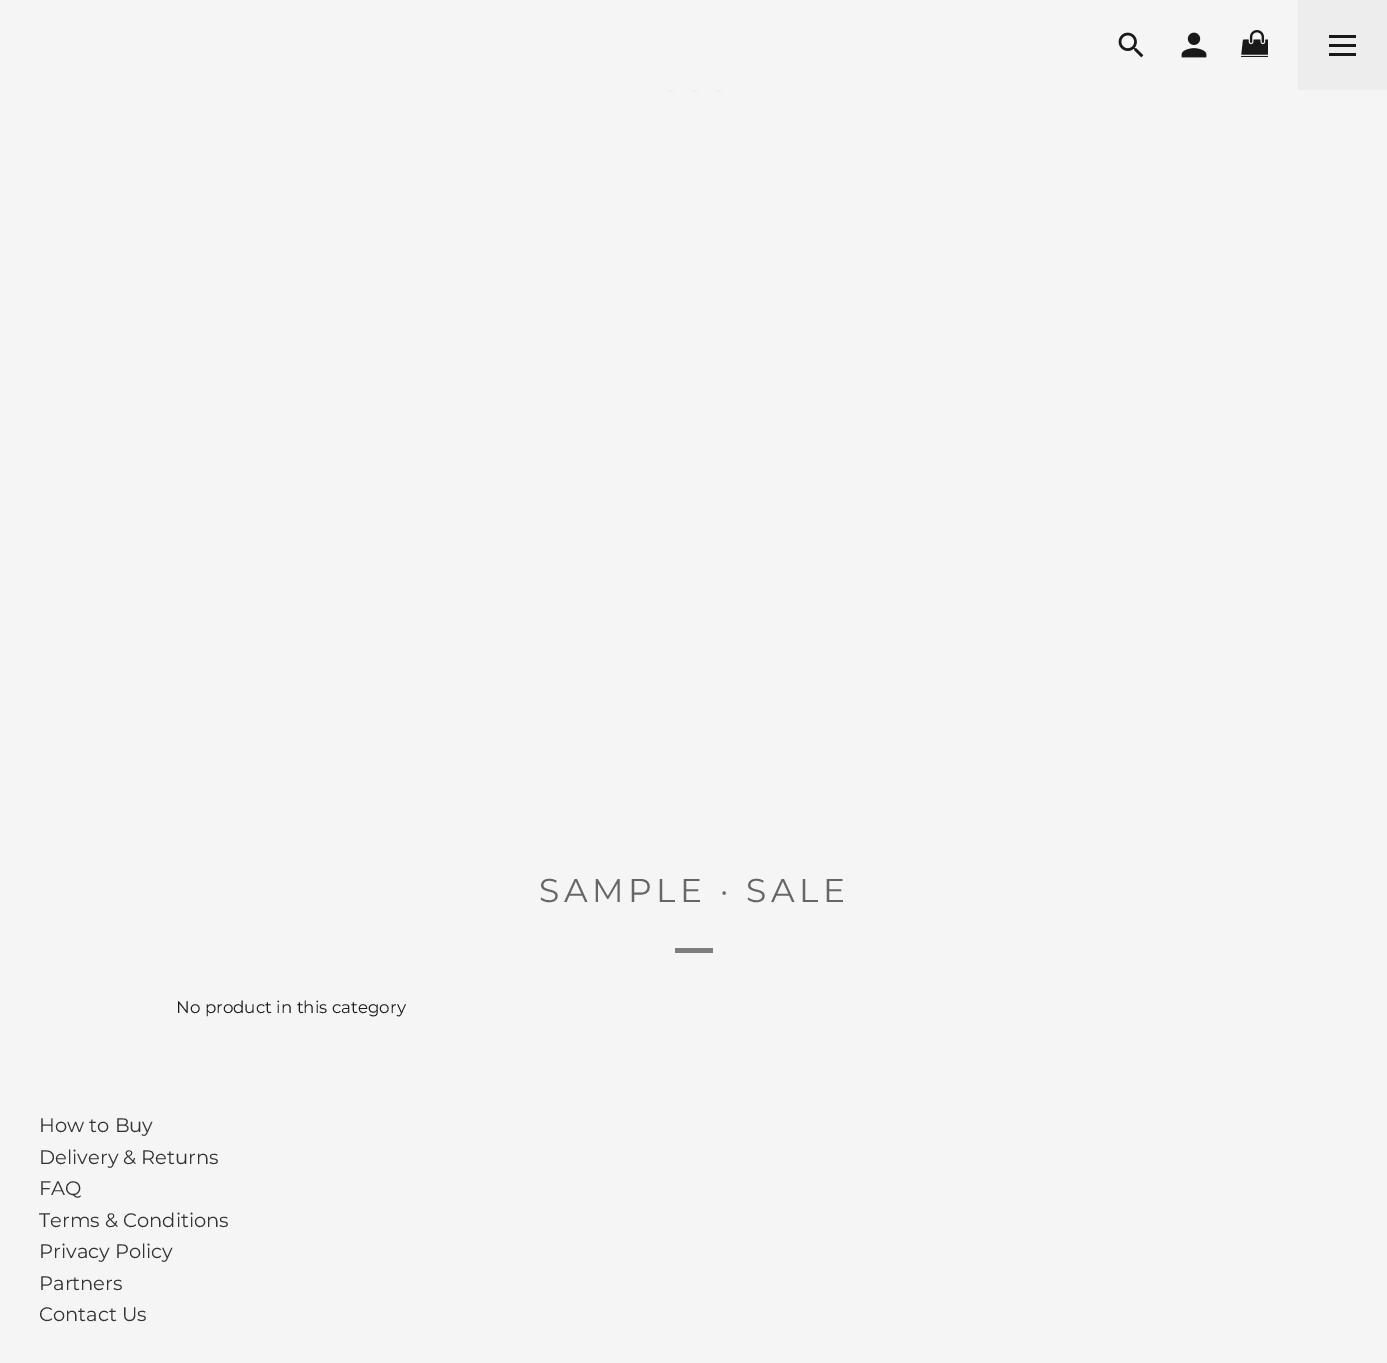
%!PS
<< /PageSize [1387 1363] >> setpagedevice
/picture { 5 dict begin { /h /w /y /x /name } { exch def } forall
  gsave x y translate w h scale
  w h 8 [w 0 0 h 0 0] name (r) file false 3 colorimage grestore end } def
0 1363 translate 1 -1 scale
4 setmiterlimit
0.961 setgray
0 0 1387 1363 rectfill
0.933 setgray
2 setlinewidth
newpath 670.5 87.5 3.5 0 360 arc closepath stroke
newpath 694.5 87.5 3.5 0 360 arc closepath stroke
newpath 718.5 87.5 3.5 0 360 arc closepath stroke
0.961 setgray
666 83 57 7 rectfill
(img1.rgb) 1118 32 26 26 picture
(img2.rgb) 1181 32 26 26 picture
(img3.rgb) 1241 30 27 27 picture
0.929 setgray
1298 0 89 90 rectfill
0.098 setgray
1329 44 27 3 rectfill
1329 35 27 3 rectfill
1329 53 27 3 rectfill
/Montserrat-Regular [33 0 0 -33 0 0] selectfont
0.4 setgray
539 902 moveto 4.5 0 (SAMPLE · SALE) ashow
0.494 setgray
675 948 38 5 rectfill
/Montserrat-Regular [16.75 0 0 -16.75 0 0] selectfont
0.098 setgray
176 1013 moveto (No product in this category) show
/Montserrat-Regular [19.5 0 0 -19.5 0 0] selectfont
0.2 setgray
39 1132 moveto (How to Buy) show
39 1164 moveto (Delivery & Returns) show
39 1195 moveto (FAQ) show
39 1227 moveto (Terms & Conditions) show
39 1258 moveto (Privacy Policy) show
39 1290 moveto (Partners) show
39 1321 moveto (Contact Us) show
showpage
